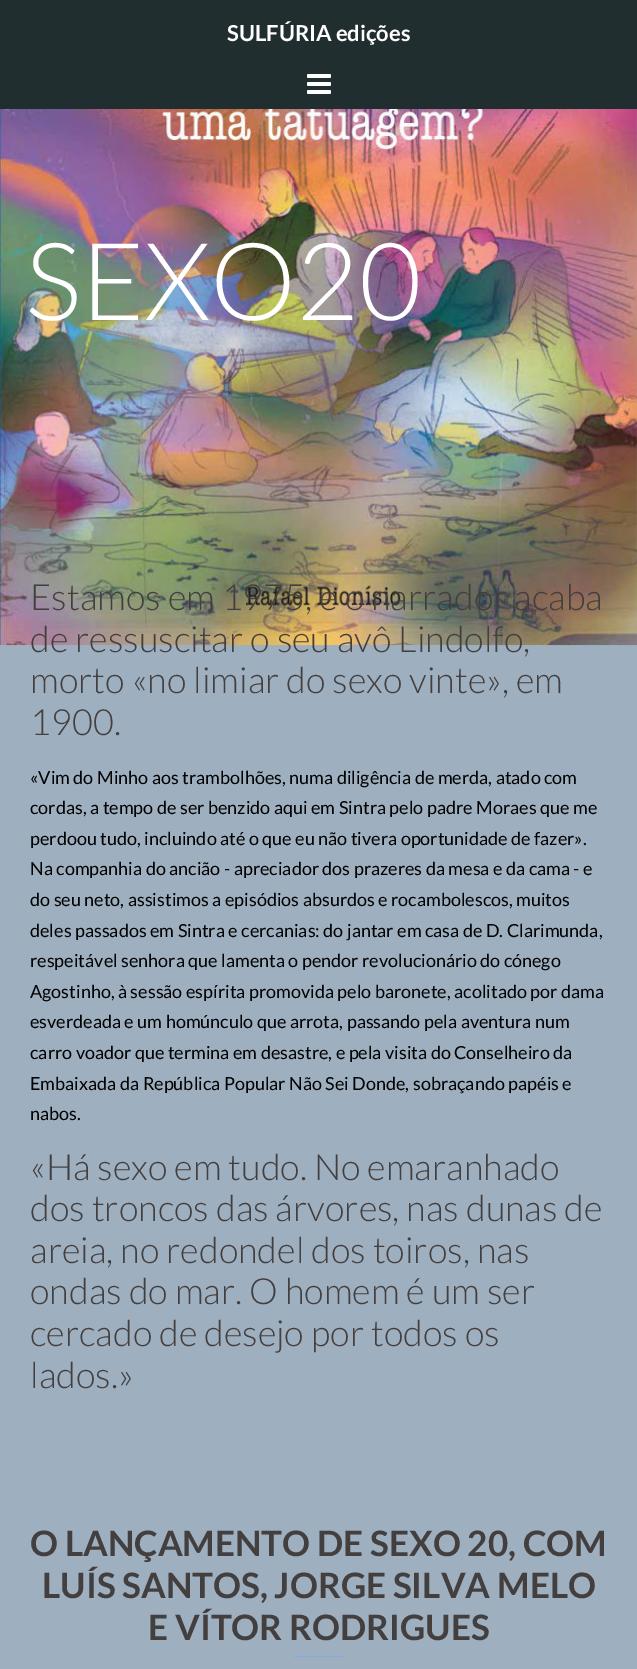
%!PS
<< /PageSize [637 1669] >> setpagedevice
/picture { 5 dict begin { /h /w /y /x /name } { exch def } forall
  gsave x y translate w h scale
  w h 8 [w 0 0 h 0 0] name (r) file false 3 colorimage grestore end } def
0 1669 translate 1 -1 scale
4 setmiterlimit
0.62 0.686 0.749 setrgbcolor
0 0 637 1669 rectfill
(img1.rgb) 0 109 637 537 picture
0.129 0.18 0.188 setrgbcolor
0 0 637 109 rectfill
/Lato-Bold [22 0 0 -22 0 0] selectfont
1 setgray
227 41 moveto (SULFÚRIA edições) show
(img2.rgb) 307 74 24 20 picture
/Lato-Light [108 0 0 -108 0 0] selectfont
25 320 moveto (SEXO20) show
/Lato-Light [36 0 0 -36 0 0] selectfont
0.267 0.247 0.247 setrgbcolor
30 610 moveto (Estamos em 1975, e o narrador acaba) show
30 652 moveto (de ressuscitar o seu avô Lindolfo,) show
30 693 moveto (morto «no limiar do sexo vinte», em) show
30 735 moveto (1900.) show
/Lato-Regular [18 0 0 -18 0 0] selectfont
0 setgray
30 784 moveto («Vim do Minho aos trambolhões, numa diligência de merda, atado com) show
30 814 moveto (cordas, a tempo de ser benzido aqui em Sintra pelo padre Moraes que me) show
30 845 moveto (perdoou tudo, incluindo até o que eu não tivera oportunidade de fazer».) show
30 875 moveto (Na companhia do ancião - apreciador dos prazeres da mesa e da cama - e) show
30 906 moveto (do seu neto, assistimos a episódios absurdos e rocambolescos, muitos) show
30 937 moveto (deles passados em Sintra e cercanias: do jantar em casa de D. Clarimunda,) show
30 967 moveto (respeitável senhora que lamenta o pendor revolucionário do cónego) show
30 998 moveto (Agostinho, à sessão espírita promovida pelo baronete, acolitado por dama) show
30 1028 moveto (esverdeada e um homúnculo que arrota, passando pela aventura num) show
30 1059 moveto (carro voador que termina em desastre, e pela visita do Conselheiro da) show
30 1090 moveto (Embaixada da República Popular Não Sei Donde, sobraçando papéis e) show
30 1120 moveto (nabos.) show
/Lato-Light [36 0 0 -36 0 0] selectfont
0.267 0.247 0.247 setrgbcolor
30 1180 moveto («Há sexo em tudo. No emaranhado) show
30 1221 moveto (dos troncos das árvores, nas dunas de) show
30 1263 moveto (areia, no redondel dos toiros, nas) show
30 1304 moveto (ondas do mar. O homem é um ser) show
30 1346 moveto (cercado de desejo por todos os) show
30 1388 moveto (lados.») show
/Lato-Bold [35 0 0 -35 0 0] selectfont
30 1556 moveto (O LANÇAMENTO DE SEXO 20, COM) show
42 1598 moveto (LUÍS SANTOS, JORGE SILVA MELO) show
148 1640 moveto (E VÍTOR RODRIGUES) show
0.51 0.671 0.898 setrgbcolor
294 1656 50 1 rectfill
showpage
